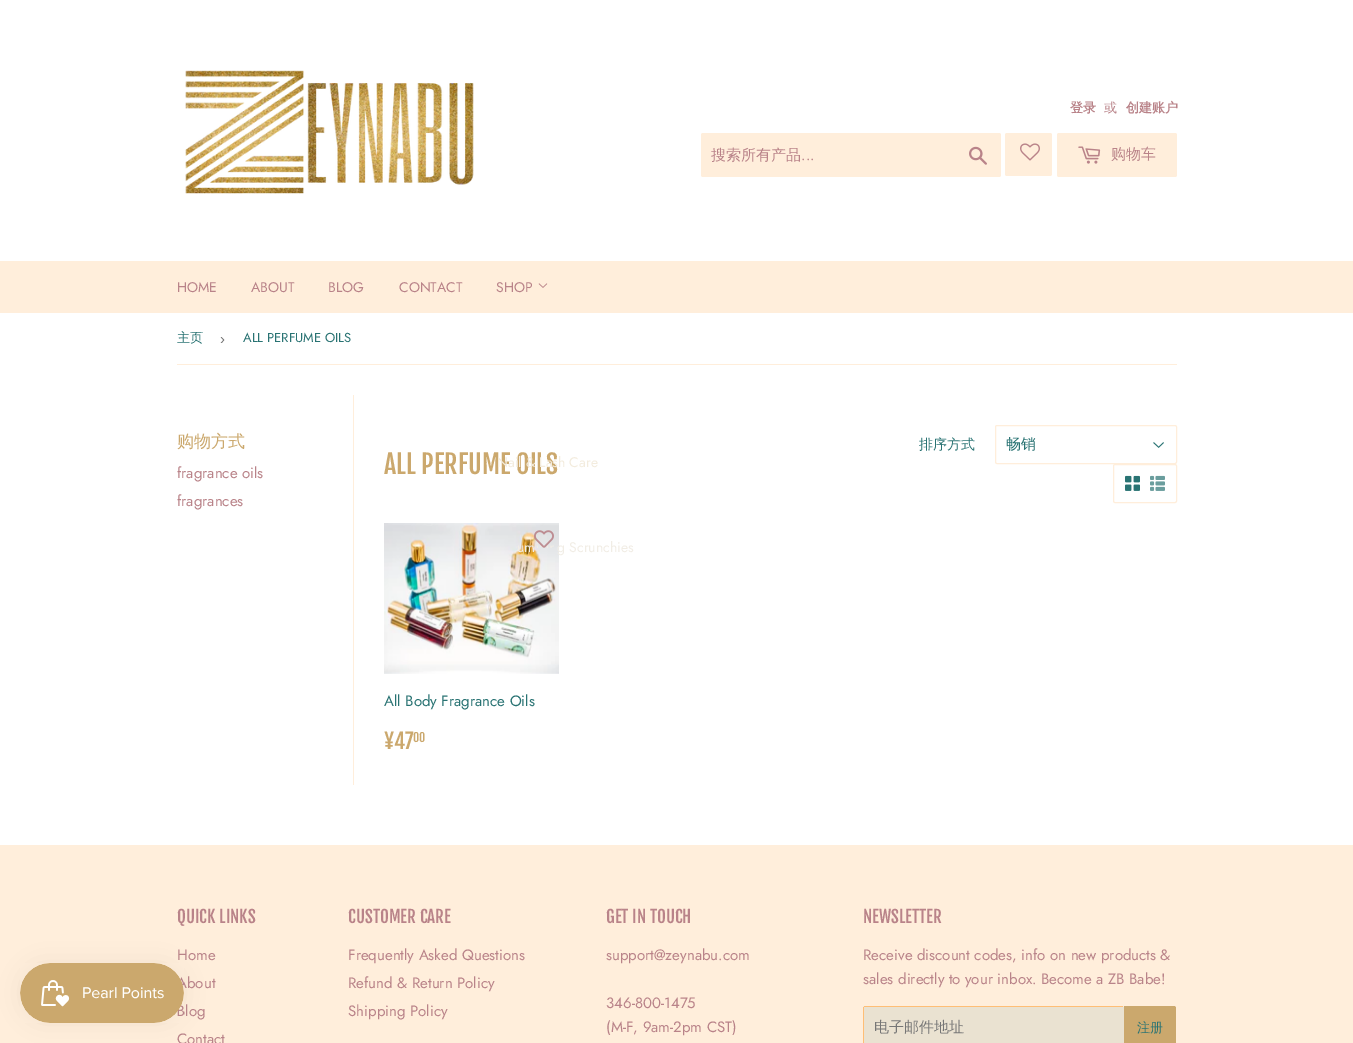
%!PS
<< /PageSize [1353 1043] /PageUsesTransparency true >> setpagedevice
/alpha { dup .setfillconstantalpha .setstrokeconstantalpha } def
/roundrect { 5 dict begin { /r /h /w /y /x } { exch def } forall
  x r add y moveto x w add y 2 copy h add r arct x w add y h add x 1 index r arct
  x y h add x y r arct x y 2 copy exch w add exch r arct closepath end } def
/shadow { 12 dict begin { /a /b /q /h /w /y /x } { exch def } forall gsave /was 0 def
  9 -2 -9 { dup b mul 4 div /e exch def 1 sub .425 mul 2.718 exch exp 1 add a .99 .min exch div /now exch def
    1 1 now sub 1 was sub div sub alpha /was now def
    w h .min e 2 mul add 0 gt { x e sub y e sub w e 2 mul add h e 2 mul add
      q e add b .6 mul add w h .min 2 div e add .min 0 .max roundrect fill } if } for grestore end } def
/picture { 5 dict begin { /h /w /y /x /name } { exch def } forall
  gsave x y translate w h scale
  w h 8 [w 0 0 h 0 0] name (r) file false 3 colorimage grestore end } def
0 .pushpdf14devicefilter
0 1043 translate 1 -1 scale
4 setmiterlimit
1 setgray
0 0 1353 1043 rectfill
(img1.rgb) 185 70 289 124 picture
/WenQuanYiZenHei-Bold [13 0 0 -13 0 0] selectfont
0.725 0.514 0.537 setrgbcolor
1070 112 moveto (登录) show
/WenQuanYiZenHei-Medium [13 0 0 -13 0 0] selectfont
1104 112 moveto (或) show
/WenQuanYiZenHei-Bold [13 0 0 -13 0 0] selectfont
1126 112 moveto (创建账户) show
1 0.933 0.859 setrgbcolor
701 133 300 44 2 roundrect fill
/WenQuanYiZenHei-Medium [15 0 0 -15 0 0] selectfont
0.725 0.514 0.537 setrgbcolor
711 160 moveto (搜索所有产品) show
/Jost-Regular [15 0 0 -15 0 0] selectfont
801 160 moveto (...) show
(img2.rgb) 969 146 18 19 picture
1 0.933 0.859 setrgbcolor
1005 133 47 43 2 roundrect fill
(img3.rgb) 1020 143 20 18 picture
1057 133 120 44 2 roundrect fill
(img4.rgb) 1078 146 23 18 picture
/WenQuanYiZenHei-Medium [15 0 0 -15 0 0] selectfont
0.725 0.514 0.537 setrgbcolor
1111 159 moveto (购物车) show
1 0.933 0.859 setrgbcolor
0 261 1353 52 rectfill
/Jost-Regular [14 0 0 -14 0 0] selectfont
0.725 0.514 0.537 setrgbcolor
177 292 moveto (HOME) show
251 292 moveto (ABOUT) show
328 292 moveto (BLOG) show
399 292 moveto (CONTACT) show
496 292 moveto (SHOP) show
(img5.rgb) 538 283 10 5 picture
/FjallaOne-Regular [26 0 0 -26 0 0] selectfont
0.796 0.659 0.427 setrgbcolor
384 474 moveto (ALL PERFUME OILS) show
/Jost-Regular [14 0 0 -14 0 0] selectfont
0.953 0.925 0.871 setrgbcolor
497 467 moveto (Nail & Lash Care) show
(img9.rgb) 384 523 175 151 picture
0.945 0.929 0.898 setrgbcolor
517 552 moveto (um) show
557 552 moveto (g Scrunchies) show
1 0.933 0.859 setrgbcolor
177 364 1000 1 rectfill
/WenQuanYiZenHei-Medium [13 0 0 -13 0 0] selectfont
0.161 0.451 0.451 setrgbcolor
177 342 moveto (主页) show
/LiberationSans-Regular [15 0 0 -15 0 0] selectfont
0.463 setgray
220 344 moveto (›) show
/Jost-Regular [13 0 0 -13 0 0] selectfont
0.161 0.451 0.451 setrgbcolor
243 342 moveto (ALL PERFUME OILS) show
/WenQuanYiZenHei-Medium [17 0 0 -17 0 0] selectfont
0.796 0.659 0.427 setrgbcolor
177 447 moveto (购物方式) show
/Jost-Regular [15 0 0 -15 0 0] selectfont
0.725 0.514 0.537 setrgbcolor
177 478 moveto (fragrance oils) show
177 506 moveto (fragrances) show
1 0.933 0.859 setrgbcolor
353 395 1 390 rectfill
/WenQuanYiZenHei-Medium [14 0 0 -14 0 0] selectfont
0.161 0.451 0.451 setrgbcolor
919 449 moveto (排序方式) show
(img6.rgb) 1153 442 11 6 picture
1 0.933 0.859 setrgbcolor
995.5 425.5 181 38 1.5 roundrect stroke
/WenQuanYiZenHei-Medium [15 0 0 -15 0 0] selectfont
0.161 0.451 0.451 setrgbcolor
1006 449 moveto (畅销) show
1 0.933 0.859 setrgbcolor
1113.5 464.5 63 38 1.5 roundrect stroke
(img7.rgb) 1125 475 15 16 picture
(img8.rgb) 1150 475 15 16 picture
(img10.rgb) 534 530 20 18 picture
/Jost-Regular [15 0 0 -15 0 0] selectfont
0.161 0.451 0.451 setrgbcolor
384 706 moveto (All Body Fragrance Oils) show
/FjallaOne-Regular [21 0 0 -21 0 0] selectfont
0.796 0.659 0.427 setrgbcolor
384 749 moveto (¥47) show
/FjallaOne-Regular [12 0 0 -12 0 0] selectfont
413 742 moveto (00) show
1 0.933 0.859 setrgbcolor
0 845 1353 198 rectfill
0 setgray
20 963 164 60 30 12.5 0.05 shadow
/Jost-Regular [15 0 0 -15 0 0] selectfont
0.725 0.514 0.537 setrgbcolor
177 988 moveto (About) show
177 1016 moveto (Blog) show
(img11.rgb) 20 963 164 60 picture
/FjallaOne-Regular [17 0 0 -17 0 0] selectfont
177 923 moveto (QUICK LINKS) show
/Jost-Regular [15 0 0 -15 0 0] selectfont
177 960 moveto (Home) show
177 1044 moveto (Contact) show
/FjallaOne-Regular [17 0 0 -17 0 0] selectfont
348 923 moveto (CUSTOMER CARE) show
/Jost-Regular [15 0 0 -15 0 0] selectfont
348 960 moveto (Frequently Asked Questions) show
348 988 moveto (Refund & Return Policy) show
348 1016 moveto (Shipping Policy) show
/FjallaOne-Regular [17 0 0 -17 0 0] selectfont
606 923 moveto (GET IN TOUCH) show
/Jost-Regular [15 0 0 -15 0 0] selectfont
606 960 moveto (support@zeynabu.com) show
606 1008 moveto (346-800-1475) show
606 1032 moveto (\(M-F, 9am-2pm CST\)) show
/FjallaOne-Regular [17 0 0 -17 0 0] selectfont
863 923 moveto (NEWSLETTER) show
/Jost-Regular [15 0 0 -15 0 0] selectfont
863 960 moveto (Receive discount codes, info on new products &) show
863 984 moveto (sales directly to your inbox. Become a ZB Babe!) show
0.918 0.886 0.82 setrgbcolor
863 1006 261 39 2 roundrect fill
1 0.745 0.459 setrgbcolor
864 1006 259 1 rectfill
863 1007 1 36 rectfill
/WenQuanYiZenHei-Medium [15 0 0 -15 0 0] selectfont
0.463 setgray
874 1032 moveto (电子邮件地址) show
0.796 0.659 0.427 setrgbcolor
newpath 1124 1006 moveto 1174 1006 lineto 1175 1006 1176 1007 1176 1008 curveto 1176 1043 lineto 1176 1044 1175 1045 1174 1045 curveto 1124 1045 lineto closepath fill
/WenQuanYiZenHei-Medium [13 0 0 -13 0 0] selectfont
0.161 0.451 0.451 setrgbcolor
1137 1032 moveto (注册) show
.poppdf14devicefilter showpage
